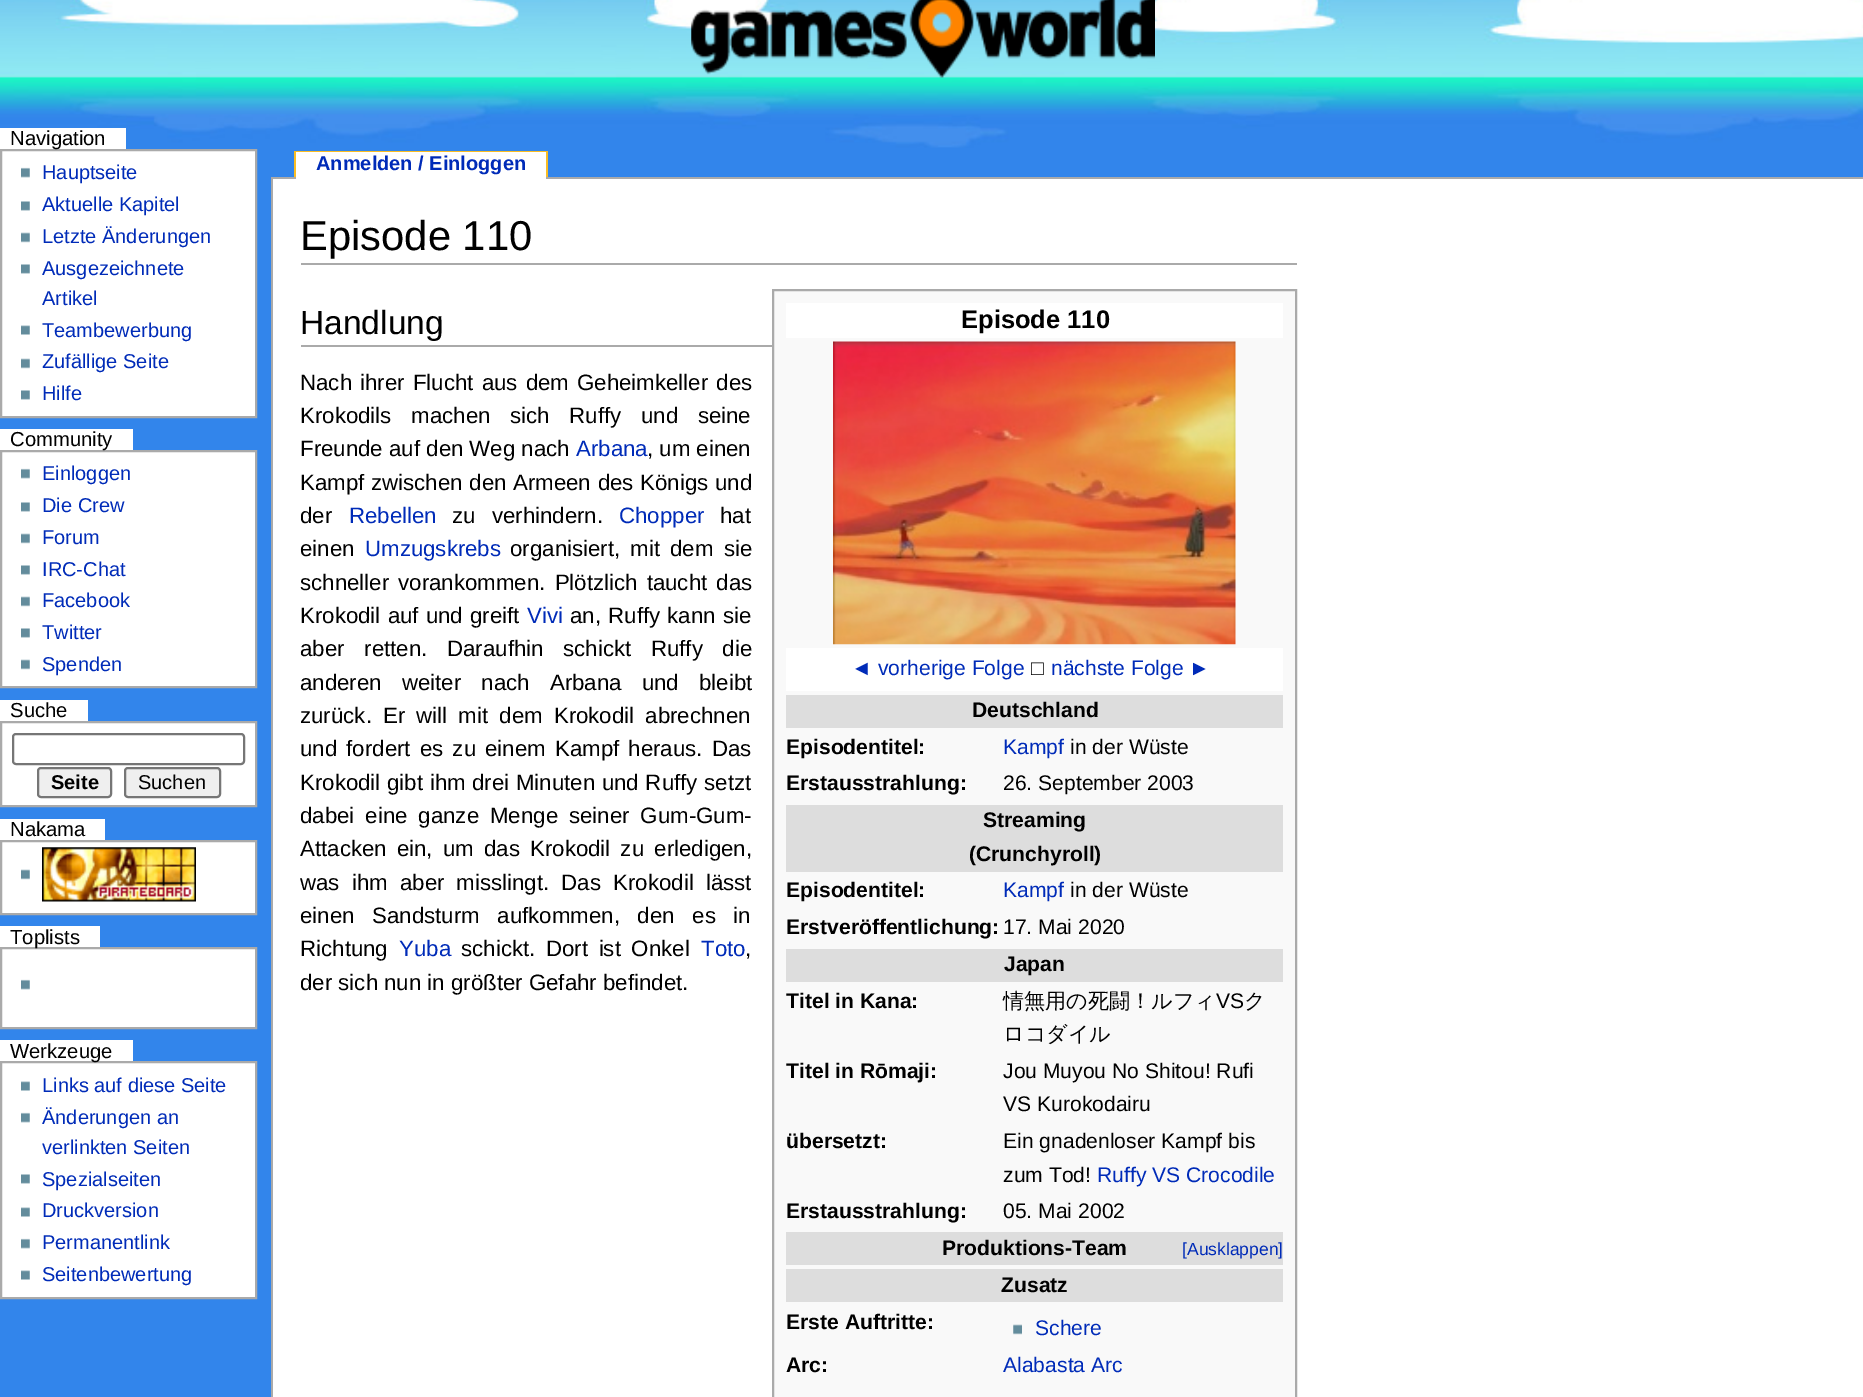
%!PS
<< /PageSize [1863 1397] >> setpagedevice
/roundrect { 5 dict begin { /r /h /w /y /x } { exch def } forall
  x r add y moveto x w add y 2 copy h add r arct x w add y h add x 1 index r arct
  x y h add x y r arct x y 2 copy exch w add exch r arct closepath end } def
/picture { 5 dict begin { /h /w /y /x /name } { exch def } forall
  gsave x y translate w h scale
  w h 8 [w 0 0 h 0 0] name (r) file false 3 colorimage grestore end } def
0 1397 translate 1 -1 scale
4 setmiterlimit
0.196 0.522 0.922 setrgbcolor
0 0 1863 1397 rectfill
(img1.rgb) 0 0 1863 148 picture
(img2.rgb) 691 0 464 78 picture
1 setgray
0 128 126 21 rectfill
newpath 1 150 moveto 256 150 lineto 256 417 lineto 1 417 lineto closepath gsave fill grestore
0.667 setgray
2 setlinewidth
stroke
/LiberationSans-Regular [20.25 0 0 -20.25 0 0] selectfont
0 setgray
10 145 moveto (Navigation) show
(img3.rgb) 21 167 9 11 picture
/LiberationSans-Regular [20 0 0 -20 0 0] selectfont
0 0.169 0.722 setrgbcolor
42 179 moveto (Hauptseite) show
(img4.rgb) 21 201 9 10 picture
42 211 moveto (Aktuelle Kapitel) show
(img5.rgb) 21 232 9 11 picture
42 243 moveto (Letzte Änderungen) show
(img4.rgb) 21 264 9 10 picture
42 275 moveto (Ausgezeichnete) show
42 305 moveto (Artikel) show
(img6.rgb) 21 325 9 10 picture
42 337 moveto (Teambewerbung) show
(img5.rgb) 21 358 9 11 picture
42 368 moveto (Zufällige Seite) show
(img4.rgb) 21 390 9 10 picture
42 400 moveto (Hilfe) show
0.98 0.741 0.137 setrgbcolor
294 151 254 1 rectfill
546 151 2 28 rectfill
294 151 2 28 rectfill
0.667 setgray
271 177 1592 2 rectfill
1 setgray
296 152 250 27 rectfill
/LiberationSans-Bold [20 0 0 -20 0 0] selectfont
0 0.169 0.722 setrgbcolor
316 170 moveto (Anmelden / Einloggen) show
1 setgray
0 429 133 21 rectfill
newpath 1 451 moveto 256 451 lineto 256 687 lineto 1 687 lineto closepath gsave fill grestore
0.667 setgray
stroke
/LiberationSans-Regular [20.25 0 0 -20.25 0 0] selectfont
0 setgray
10 446 moveto (Community) show
(img3.rgb) 21 468 9 11 picture
/LiberationSans-Regular [20 0 0 -20 0 0] selectfont
0 0.169 0.722 setrgbcolor
42 480 moveto (Einloggen) show
(img4.rgb) 21 502 9 10 picture
42 512 moveto (Die Crew) show
(img5.rgb) 21 533 9 11 picture
42 544 moveto (Forum) show
(img4.rgb) 21 565 9 10 picture
42 576 moveto (IRC-Chat) show
(img5.rgb) 21 596 9 11 picture
42 607 moveto (Facebook) show
(img4.rgb) 21 628 9 10 picture
42 639 moveto (Twitter) show
(img5.rgb) 21 659 9 11 picture
42 671 moveto (Spenden) show
1 setgray
0 700 88 21 rectfill
/LiberationSans-Regular [20.25 0 0 -20.25 0 0] selectfont
0 setgray
10 717 moveto (Suche) show
1 setgray
newpath 1 722 moveto 256 722 lineto 256 806 lineto 1 806 lineto closepath gsave fill grestore
0.667 setgray
stroke
0.463 setgray
13 734 231 30 3 roundrect stroke
0.937 setgray
38 768 73 29 3 roundrect gsave fill grestore
0.463 setgray
stroke
/LiberationSans-Bold [20 0 0 -20 0 0] selectfont
0 setgray
51 789 moveto (Seite) show
0.937 setgray
125 768 95 29 3 roundrect gsave fill grestore
0.463 setgray
stroke
/LiberationSans-Regular [20 0 0 -20 0 0] selectfont
0 setgray
138 789 moveto (Suchen) show
1 setgray
0 819 105 21 rectfill
/LiberationSans-Regular [20.25 0 0 -20.25 0 0] selectfont
0 setgray
10 836 moveto (Nakama) show
1 setgray
newpath 1 841 moveto 256 841 lineto 256 914 lineto 1 914 lineto closepath gsave fill grestore
0.667 setgray
stroke
(img5.rgb) 21 869 9 11 picture
(img7.rgb) 42 847 154 55 picture
1 setgray
0 926 100 21 rectfill
newpath 1 948 moveto 256 948 lineto 256 1028 lineto 1 1028 lineto closepath gsave fill grestore
0.667 setgray
stroke
0 setgray
10 944 moveto (Toplists) show
(img3.rgb) 21 979 9 11 picture
1 setgray
0 1040 133 21 rectfill
newpath 1 1062 moveto 256 1062 lineto 256 1298 lineto 1 1298 lineto closepath gsave fill grestore
0.667 setgray
stroke
0 setgray
10 1058 moveto (Werkzeuge) show
(img6.rgb) 21 1081 9 10 picture
/LiberationSans-Regular [20 0 0 -20 0 0] selectfont
0 0.169 0.722 setrgbcolor
42 1092 moveto (Links auf diese Seite) show
(img3.rgb) 21 1112 9 11 picture
42 1124 moveto (Änderungen an) show
42 1154 moveto (verlinkten Seiten) show
(img4.rgb) 21 1174 9 10 picture
42 1186 moveto (Spezialseiten) show
(img6.rgb) 21 1207 9 10 picture
42 1217 moveto (Druckversion) show
(img3.rgb) 21 1238 9 11 picture
42 1249 moveto (Permanentlink) show
(img6.rgb) 21 1270 9 10 picture
42 1281 moveto (Seitenbewertung) show
1 setgray
273 179 1590 1218 rectfill
0.667 setgray
271 177 2 1220 rectfill
301 263 996 2 rectfill
/LiberationSans-Regular [41.75 0 0 -41.75 0 0] selectfont
0 setgray
300 250 moveto (Episode 110) show
0.667 setgray
301 345 471 2 rectfill
/LiberationSans-Regular [33.5 0 0 -33.5 0 0] selectfont
0 setgray
300 334 moveto (Handlung) show
0.976 setgray
newpath 773 290 moveto 1296 290 lineto 1296 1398 lineto 773 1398 lineto closepath gsave fill grestore
0.667 setgray
stroke
1 setgray
786 303 497 35 rectfill
/LiberationSans-Bold [25.5 0 0 -25.5 0 0] selectfont
0 setgray
961 328 moveto (Episode 110) show
(img8.rgb) 833 341 403 304 picture
1 setgray
786 648 497 43 rectfill
/LiberationSans-Regular [21.1 0 0 -21.1 0 0] selectfont
0 0.169 0.722 setrgbcolor
851 675 moveto (◄ vorherige Folge) show
0 setgray
1031 675 moveto (□) show
0 0.169 0.722 setrgbcolor
1051 675 moveto (nächste Folge ►) show
0.867 setgray
786 695 497 33 rectfill
/LiberationSans-Bold [21.1 0 0 -21.1 0 0] selectfont
0 setgray
972 717 moveto (Deutschland) show
786 754 moveto (Episodentitel:) show
/LiberationSans-Regular [21.1 0 0 -21.1 0 0] selectfont
0 0.169 0.722 setrgbcolor
1003 754 moveto (Kampf) show
0 setgray
1070 754 moveto (in der Wüste) show
/LiberationSans-Bold [21.1 0 0 -21.1 0 0] selectfont
786 790 moveto (Erstausstrahlung:) show
/LiberationSans-Regular [21.1 0 0 -21.1 0 0] selectfont
1003 790 moveto (26. September 2003) show
0.867 setgray
786 805 497 67 rectfill
/LiberationSans-Bold [21.1 0 0 -21.1 0 0] selectfont
0 setgray
983 827 moveto (Streaming) show
969 861 moveto (\(Crunchyroll\)) show
786 897 moveto (Episodentitel:) show
/LiberationSans-Regular [21.1 0 0 -21.1 0 0] selectfont
0 0.169 0.722 setrgbcolor
1003 897 moveto (Kampf) show
0 setgray
1070 897 moveto (in der Wüste) show
/LiberationSans-Bold [21.1 0 0 -21.1 0 0] selectfont
786 934 moveto (Erstveröffentlichung:) show
/LiberationSans-Regular [21.1 0 0 -21.1 0 0] selectfont
1003 934 moveto (17. Mai 2020) show
0.867 setgray
786 949 497 33 rectfill
/LiberationSans-Bold [21.1 0 0 -21.1 0 0] selectfont
0 setgray
1004 971 moveto (Japan) show
786 1008 moveto (Titel in Kana:) show
/WenQuanYiZenHei-Medium [21.1 0 0 -21.1 0 0] selectfont
1003 1008 moveto (情無用の死闘！ルフィ) show
/LiberationSans-Regular [21.1 0 0 -21.1 0 0] selectfont
1216 1008 moveto (VS) show
/WenQuanYiZenHei-Medium [21.1 0 0 -21.1 0 0] selectfont
1244 1008 moveto (ク) show
1003 1041 moveto (ロコダイル) show
/LiberationSans-Bold [21.1 0 0 -21.1 0 0] selectfont
786 1078 moveto (Titel in Rōmaji:) show
/LiberationSans-Regular [21.1 0 0 -21.1 0 0] selectfont
1003 1078 moveto (Jou Muyou No Shitou! Rufi) show
1003 1111 moveto (VS Kurokodairu) show
/LiberationSans-Bold [21.1 0 0 -21.1 0 0] selectfont
786 1148 moveto (übersetzt:) show
/LiberationSans-Regular [21.1 0 0 -21.1 0 0] selectfont
1003 1148 moveto (Ein gnadenloser Kampf bis) show
1003 1182 moveto (zum Tod!) show
0 0.169 0.722 setrgbcolor
1097 1182 moveto (Ruffy VS Crocodile) show
/LiberationSans-Bold [21.1 0 0 -21.1 0 0] selectfont
0 setgray
786 1218 moveto (Erstausstrahlung:) show
/LiberationSans-Regular [21.1 0 0 -21.1 0 0] selectfont
1003 1218 moveto (05. Mai 2002) show
0.867 setgray
786 1232 497 33 rectfill
/LiberationSans-Bold [21.1 0 0 -21.1 0 0] selectfont
0 setgray
942 1255 moveto (Produktions-Team) show
/LiberationSans-Regular [17.5 0 0 -17.5 0 0] selectfont
0 0.169 0.722 setrgbcolor
1182 1255 moveto ([Ausklappen]) show
0.867 setgray
786 1269 497 33 rectfill
/LiberationSans-Bold [21.1 0 0 -21.1 0 0] selectfont
0 setgray
1001 1292 moveto (Zusatz) show
786 1329 moveto (Erste Auftritte:) show
(img9.rgb) 1013 1324 9 11 picture
/LiberationSans-Regular [21.1 0 0 -21.1 0 0] selectfont
0 0.169 0.722 setrgbcolor
1035 1335 moveto (Schere) show
/LiberationSans-Bold [21.1 0 0 -21.1 0 0] selectfont
0 setgray
786 1372 moveto (Arc:) show
/LiberationSans-Regular [21.1 0 0 -21.1 0 0] selectfont
0 0.169 0.722 setrgbcolor
1003 1372 moveto (Alabasta Arc) show
/LiberationSans-Regular [22.25 0 0 -22.25 0 0] selectfont
0 setgray
300 390 moveto 2 0 32 (Nach ihrer Flucht aus dem Geheimkeller des) widthshow
300 423 moveto 13.5 0 32 (Krokodils machen sich Ruffy und seine) widthshow
300 456 moveto (Freunde auf den Weg nach) show
0 0.169 0.722 setrgbcolor
576 456 moveto (Arbana) show
0 setgray
647 456 moveto (, um einen) show
300 490 moveto 0.5 0 32 (Kampf zwischen den Armeen des Königs und) widthshow
300 523 moveto (der) show
0 0.169 0.722 setrgbcolor
349 523 moveto (Rebellen) show
0 setgray
452 523 moveto 10 0 32 (zu verhindern.) widthshow
0 0.169 0.722 setrgbcolor
619 523 moveto (Chopper) show
0 setgray
720 523 moveto (hat) show
300 556 moveto (einen) show
0 0.169 0.722 setrgbcolor
365 556 moveto (Umzugskrebs) show
0 setgray
510 556 moveto 4 0 32 (organisiert, mit dem sie) widthshow
300 590 moveto 3 0 32 (schneller vorankommen. Plötzlich taucht das) widthshow
300 623 moveto 1 0 32 (Krokodil auf und greift) widthshow
0 0.169 0.722 setrgbcolor
527 623 moveto (Vivi) show
0 setgray
570 623 moveto 1 0 32 (an, Ruffy kann sie) widthshow
300 656 moveto 13.5 0 32 (aber retten. Daraufhin schickt Ruffy die) widthshow
300 690 moveto 14 0 32 (anderen weiter nach Arbana und bleibt) widthshow
300 723 moveto 5 0 32 (zurück. Er will mit dem Krokodil abrechnen) widthshow
300 756 moveto 3 0 32 (und fordert es zu einem Kampf heraus. Das) widthshow
300 790 moveto 0.5 0 32 (Krokodil gibt ihm drei Minuten und Ruffy setzt) widthshow
300 823 moveto 4.75 0 32 (dabei eine ganze Menge seiner Gum-Gum-) widthshow
300 856 moveto 4 0 32 (Attacken ein, um das Krokodil zu erledigen,) widthshow
300 890 moveto 6 0 32 (was ihm aber misslingt. Das Krokodil lässt) widthshow
300 923 moveto 11.5 0 32 (einen Sandsturm aufkommen, den es in) widthshow
300 956 moveto (Richtung) show
0 0.169 0.722 setrgbcolor
399 956 moveto (Yuba) show
0 setgray
461 956 moveto 4.5 0 32 (schickt. Dort ist Onkel) widthshow
0 0.169 0.722 setrgbcolor
701 956 moveto (Toto) show
0 setgray
745 956 moveto (,) show
300 990 moveto (der sich nun in größter Gefahr befindet.) show
showpage
